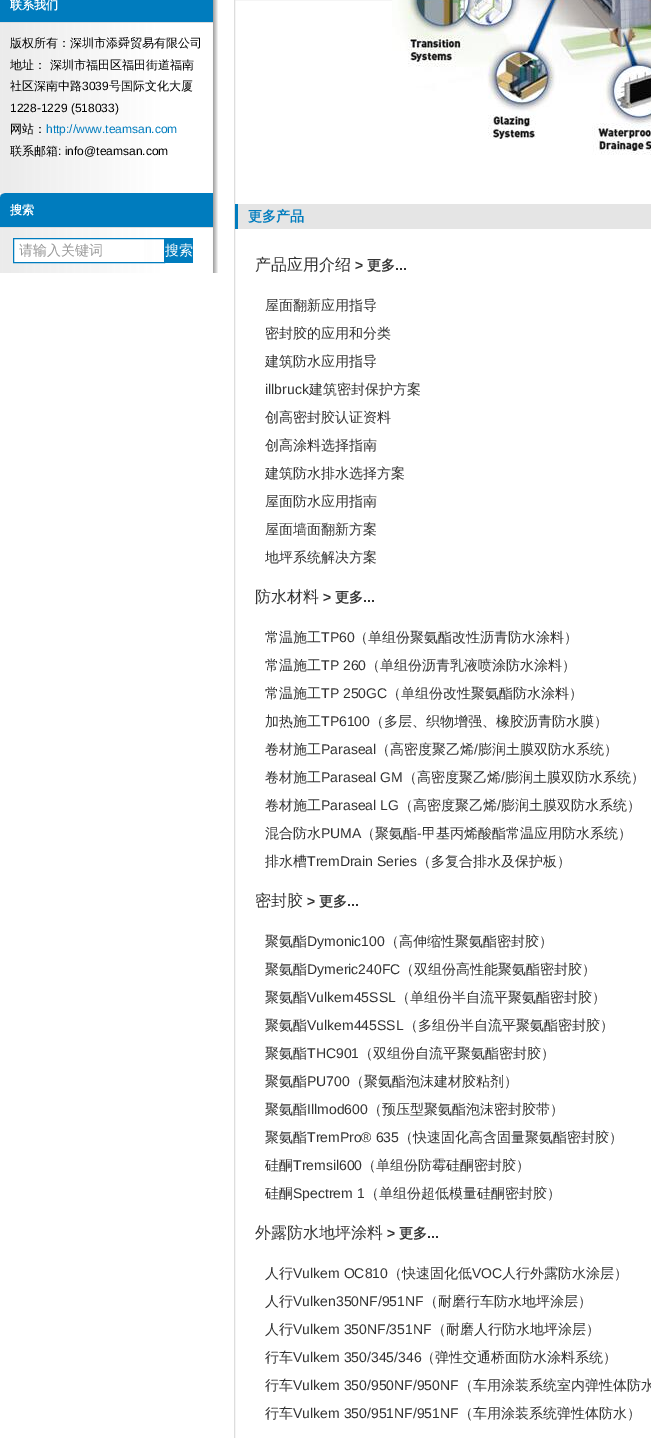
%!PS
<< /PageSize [651 1438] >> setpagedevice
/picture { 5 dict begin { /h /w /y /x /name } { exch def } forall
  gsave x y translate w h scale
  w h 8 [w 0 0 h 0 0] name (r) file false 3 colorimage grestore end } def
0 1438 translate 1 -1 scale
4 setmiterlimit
1 setgray
0 0 651 1438 rectfill
(img1.rgb) 0 0 218 273 picture
0 0.486 0.745 setrgbcolor
0 0 213 22 rectfill
0.867 setgray
0 22 213 1 rectfill
/WenQuanYiZenHei-Bold [12 0 0 -12 0 0] selectfont
1 setgray
10 9 moveto (联系我们) show
/WenQuanYiZenHei-Medium [12 0 0 -12 0 0] selectfont
0 setgray
10 47 moveto (版权所有：深圳市添舜贸易有限公司) show
10 69 moveto (地址： 深圳市福田区福田街道福南) show
10 90 moveto (社区深南中路) show
/LiberationSans-Regular [12 0 0 -12 0 0] selectfont
82 90 moveto (3039) show
/WenQuanYiZenHei-Medium [12 0 0 -12 0 0] selectfont
109 90 moveto (号国际文化大厦) show
/LiberationSans-Regular [12 0 0 -12 0 0] selectfont
10 112 moveto (1228-1229 \(518033\)) show
/WenQuanYiZenHei-Medium [12 0 0 -12 0 0] selectfont
10 133 moveto (网站：) show
/LiberationSans-Regular [12 0 0 -12 0 0] selectfont
0 0.486 0.745 setrgbcolor
46 133 moveto (http://www.teamsan.com) show
/WenQuanYiZenHei-Medium [12 0 0 -12 0 0] selectfont
0 setgray
10 155 moveto (联系邮箱) show
/LiberationSans-Regular [12 0 0 -12 0 0] selectfont
58 155 moveto (: info@teamsan.com) show
(img2.rgb) 0 193 213 34 picture
0.867 setgray
0 227 213 1 rectfill
/WenQuanYiZenHei-Bold [12 0 0 -12 0 0] selectfont
1 setgray
10 214 moveto (搜索) show
14 239 130 23 rectfill
0 0.486 0.745 setrgbcolor
13.5 238.5 151 24 rectstroke
/WenQuanYiZenHei-Medium [14 0 0 -14 0 0] selectfont
0.6 setgray
19 255 moveto (请输入关键词) show
0 0.486 0.745 setrgbcolor
165 238 28 25 rectfill
1 setgray
165 255 moveto (搜索) show
0.867 setgray
234.5 -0.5 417 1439 rectstroke
(img3.rgb) 392 0 259 155 picture
0.898 setgray
238 204 413 25 rectfill
0 0.486 0.745 setrgbcolor
235 204 3 25 rectfill
/WenQuanYiZenHei-Bold [14 0 0 -14 0 0] selectfont
248 221 moveto (更多产品) show
/WenQuanYiZenHei-Medium [16 0 0 -16 0 0] selectfont
0.2 setgray
255 270 moveto (产品应用介绍) show
/LiberationSans-Bold [14 0 0 -14 0 0] selectfont
355 270 moveto (>) show
/WenQuanYiZenHei-Bold [14 0 0 -14 0 0] selectfont
367 270 moveto (更多) show
/LiberationSans-Bold [14 0 0 -14 0 0] selectfont
395 270 moveto (...) show
/WenQuanYiZenHei-Medium [14 0 0 -14 0 0] selectfont
265 310 moveto (屋面翻新应用指导) show
265 338 moveto (密封胶的应用和分类) show
265 366 moveto (建筑防水应用指导) show
/LiberationSans-Regular [14 0 0 -14 0 0] selectfont
265 394 moveto (illbruck) show
/WenQuanYiZenHei-Medium [14 0 0 -14 0 0] selectfont
309 394 moveto (建筑密封保护方案) show
265 422 moveto (创高密封胶认证资料) show
265 450 moveto (创高涂料选择指南) show
265 478 moveto (建筑防水排水选择方案) show
265 506 moveto (屋面防水应用指南) show
265 534 moveto (屋面墙面翻新方案) show
265 562 moveto (地坪系统解决方案) show
/WenQuanYiZenHei-Medium [16 0 0 -16 0 0] selectfont
255 602 moveto (防水材料) show
/LiberationSans-Bold [14 0 0 -14 0 0] selectfont
323 602 moveto (>) show
/WenQuanYiZenHei-Bold [14 0 0 -14 0 0] selectfont
335 602 moveto (更多) show
/LiberationSans-Bold [14 0 0 -14 0 0] selectfont
363 602 moveto (...) show
/WenQuanYiZenHei-Medium [14 0 0 -14 0 0] selectfont
265 642 moveto (常温施工) show
/LiberationSans-Regular [14 0 0 -14 0 0] selectfont
321 642 moveto (TP60) show
/WenQuanYiZenHei-Medium [14 0 0 -14 0 0] selectfont
354 642 moveto (（单组份聚氨酯改性沥青防水涂料）) show
265 670 moveto (常温施工) show
/LiberationSans-Regular [14 0 0 -14 0 0] selectfont
321 670 moveto (TP 260) show
/WenQuanYiZenHei-Medium [14 0 0 -14 0 0] selectfont
366 670 moveto (（单组份沥青乳液喷涂防水涂料）) show
265 698 moveto (常温施工) show
/LiberationSans-Regular [14 0 0 -14 0 0] selectfont
321 698 moveto (TP 250GC) show
/WenQuanYiZenHei-Medium [14 0 0 -14 0 0] selectfont
387 698 moveto (（单组份改性聚氨酯防水涂料）) show
265 726 moveto (加热施工) show
/LiberationSans-Regular [14 0 0 -14 0 0] selectfont
321 726 moveto (TP6100) show
/WenQuanYiZenHei-Medium [14 0 0 -14 0 0] selectfont
370 726 moveto (（多层、织物增强、橡胶沥青防水膜）) show
265 754 moveto (卷材施工) show
/LiberationSans-Regular [14 0 0 -14 0 0] selectfont
321 754 moveto (Paraseal) show
/WenQuanYiZenHei-Medium [14 0 0 -14 0 0] selectfont
376 754 moveto (（高密度聚乙烯) show
/LiberationSans-Regular [14 0 0 -14 0 0] selectfont
474 754 moveto (/) show
/WenQuanYiZenHei-Medium [14 0 0 -14 0 0] selectfont
478 754 moveto (膨润土膜双防水系统）) show
265 782 moveto (卷材施工) show
/LiberationSans-Regular [14 0 0 -14 0 0] selectfont
321 782 moveto (Paraseal GM) show
/WenQuanYiZenHei-Medium [14 0 0 -14 0 0] selectfont
403 782 moveto (（高密度聚乙烯) show
/LiberationSans-Regular [14 0 0 -14 0 0] selectfont
501 782 moveto (/) show
/WenQuanYiZenHei-Medium [14 0 0 -14 0 0] selectfont
505 782 moveto (膨润土膜双防水系统）) show
265 810 moveto (卷材施工) show
/LiberationSans-Regular [14 0 0 -14 0 0] selectfont
321 810 moveto (Paraseal LG) show
/WenQuanYiZenHei-Medium [14 0 0 -14 0 0] selectfont
399 810 moveto (（高密度聚乙烯) show
/LiberationSans-Regular [14 0 0 -14 0 0] selectfont
497 810 moveto (/) show
/WenQuanYiZenHei-Medium [14 0 0 -14 0 0] selectfont
501 810 moveto (膨润土膜双防水系统）) show
265 838 moveto (混合防水) show
/LiberationSans-Regular [14 0 0 -14 0 0] selectfont
321 838 moveto (PUMA) show
/WenQuanYiZenHei-Medium [14 0 0 -14 0 0] selectfont
361 838 moveto (（聚氨酯) show
/LiberationSans-Regular [14 0 0 -14 0 0] selectfont
417 838 moveto (-) show
/WenQuanYiZenHei-Medium [14 0 0 -14 0 0] selectfont
422 838 moveto (甲基丙烯酸酯常温应用防水系统）) show
265 866 moveto (排水槽) show
/LiberationSans-Regular [14 0 0 -14 0 0] selectfont
307 866 moveto (TremDrain Series) show
/WenQuanYiZenHei-Medium [14 0 0 -14 0 0] selectfont
417 866 moveto (（多复合排水及保护板）) show
/WenQuanYiZenHei-Medium [16 0 0 -16 0 0] selectfont
255 906 moveto (密封胶) show
/LiberationSans-Bold [14 0 0 -14 0 0] selectfont
307 906 moveto (>) show
/WenQuanYiZenHei-Bold [14 0 0 -14 0 0] selectfont
319 906 moveto (更多) show
/LiberationSans-Bold [14 0 0 -14 0 0] selectfont
347 906 moveto (...) show
/WenQuanYiZenHei-Medium [14 0 0 -14 0 0] selectfont
265 946 moveto (聚氨酯) show
/LiberationSans-Regular [14 0 0 -14 0 0] selectfont
307 946 moveto (Dymonic100) show
/WenQuanYiZenHei-Medium [14 0 0 -14 0 0] selectfont
385 946 moveto (（高伸缩性聚氨酯密封胶）) show
265 974 moveto (聚氨酯) show
/LiberationSans-Regular [14 0 0 -14 0 0] selectfont
307 974 moveto (Dymeric240FC) show
/WenQuanYiZenHei-Medium [14 0 0 -14 0 0] selectfont
400 974 moveto (（双组份高性能聚氨酯密封胶）) show
265 1002 moveto (聚氨酯) show
/LiberationSans-Regular [14 0 0 -14 0 0] selectfont
307 1002 moveto (Vulkem45SSL) show
/WenQuanYiZenHei-Medium [14 0 0 -14 0 0] selectfont
396 1002 moveto (（单组份半自流平聚氨酯密封胶）) show
265 1030 moveto (聚氨酯) show
/LiberationSans-Regular [14 0 0 -14 0 0] selectfont
307 1030 moveto (Vulkem445SSL) show
/WenQuanYiZenHei-Medium [14 0 0 -14 0 0] selectfont
404 1030 moveto (（多组份半自流平聚氨酯密封胶）) show
265 1058 moveto (聚氨酯) show
/LiberationSans-Regular [14 0 0 -14 0 0] selectfont
307 1058 moveto (THC901) show
/WenQuanYiZenHei-Medium [14 0 0 -14 0 0] selectfont
359 1058 moveto (（双组份自流平聚氨酯密封胶）) show
265 1086 moveto (聚氨酯) show
/LiberationSans-Regular [14 0 0 -14 0 0] selectfont
307 1086 moveto (PU700) show
/WenQuanYiZenHei-Medium [14 0 0 -14 0 0] selectfont
350 1086 moveto (（聚氨酯泡沫建材胶粘剂）) show
265 1114 moveto (聚氨酯) show
/LiberationSans-Regular [14 0 0 -14 0 0] selectfont
307 1114 moveto (Illmod600) show
/WenQuanYiZenHei-Medium [14 0 0 -14 0 0] selectfont
368 1114 moveto (（预压型聚氨酯泡沫密封胶带）) show
265 1142 moveto (聚氨酯) show
/LiberationSans-Regular [14 0 0 -14 0 0] selectfont
307 1142 moveto (TremPro® 635) show
/WenQuanYiZenHei-Medium [14 0 0 -14 0 0] selectfont
399 1142 moveto (（快速固化高含固量聚氨酯密封胶）) show
265 1170 moveto (硅酮) show
/LiberationSans-Regular [14 0 0 -14 0 0] selectfont
293 1170 moveto (Tremsil600) show
/WenQuanYiZenHei-Medium [14 0 0 -14 0 0] selectfont
362 1170 moveto (（单组份防霉硅酮密封胶）) show
265 1198 moveto (硅酮) show
/LiberationSans-Regular [14 0 0 -14 0 0] selectfont
293 1198 moveto (Spectrem 1) show
/WenQuanYiZenHei-Medium [14 0 0 -14 0 0] selectfont
365 1198 moveto (（单组份超低模量硅酮密封胶）) show
/WenQuanYiZenHei-Medium [16 0 0 -16 0 0] selectfont
255 1238 moveto (外露防水地坪涂料) show
/LiberationSans-Bold [14 0 0 -14 0 0] selectfont
387 1238 moveto (>) show
/WenQuanYiZenHei-Bold [14 0 0 -14 0 0] selectfont
399 1238 moveto (更多) show
/LiberationSans-Bold [14 0 0 -14 0 0] selectfont
427 1238 moveto (...) show
/WenQuanYiZenHei-Medium [14 0 0 -14 0 0] selectfont
265 1278 moveto (人行) show
/LiberationSans-Regular [14 0 0 -14 0 0] selectfont
293 1278 moveto (Vulkem OC810) show
/WenQuanYiZenHei-Medium [14 0 0 -14 0 0] selectfont
388 1278 moveto (（快速固化低) show
/LiberationSans-Regular [14 0 0 -14 0 0] selectfont
472 1278 moveto (VOC) show
/WenQuanYiZenHei-Medium [14 0 0 -14 0 0] selectfont
502 1278 moveto (人行外露防水涂层）) show
265 1306 moveto (人行) show
/LiberationSans-Regular [14 0 0 -14 0 0] selectfont
293 1306 moveto (Vulken350NF/951NF) show
/WenQuanYiZenHei-Medium [14 0 0 -14 0 0] selectfont
424 1306 moveto (（耐磨行车防水地坪涂层）) show
265 1334 moveto (人行) show
/LiberationSans-Regular [14 0 0 -14 0 0] selectfont
293 1334 moveto (Vulkem 350NF/351NF) show
/WenQuanYiZenHei-Medium [14 0 0 -14 0 0] selectfont
432 1334 moveto (（耐磨人行防水地坪涂层）) show
265 1362 moveto (行车) show
/LiberationSans-Regular [14 0 0 -14 0 0] selectfont
293 1362 moveto (Vulkem 350/345/346) show
/WenQuanYiZenHei-Medium [14 0 0 -14 0 0] selectfont
421 1362 moveto (（弹性交通桥面防水涂料系统）) show
265 1390 moveto (行车) show
/LiberationSans-Regular [14 0 0 -14 0 0] selectfont
293 1390 moveto (Vulkem 350/950NF/950NF) show
/WenQuanYiZenHei-Medium [14 0 0 -14 0 0] selectfont
459 1390 moveto (（车用涂装系统室内弹性体防水) show
265 1418 moveto (行车) show
/LiberationSans-Regular [14 0 0 -14 0 0] selectfont
293 1418 moveto (Vulkem 350/951NF/951NF) show
/WenQuanYiZenHei-Medium [14 0 0 -14 0 0] selectfont
459 1418 moveto (（车用涂装系统弹性体防水）) show
showpage
